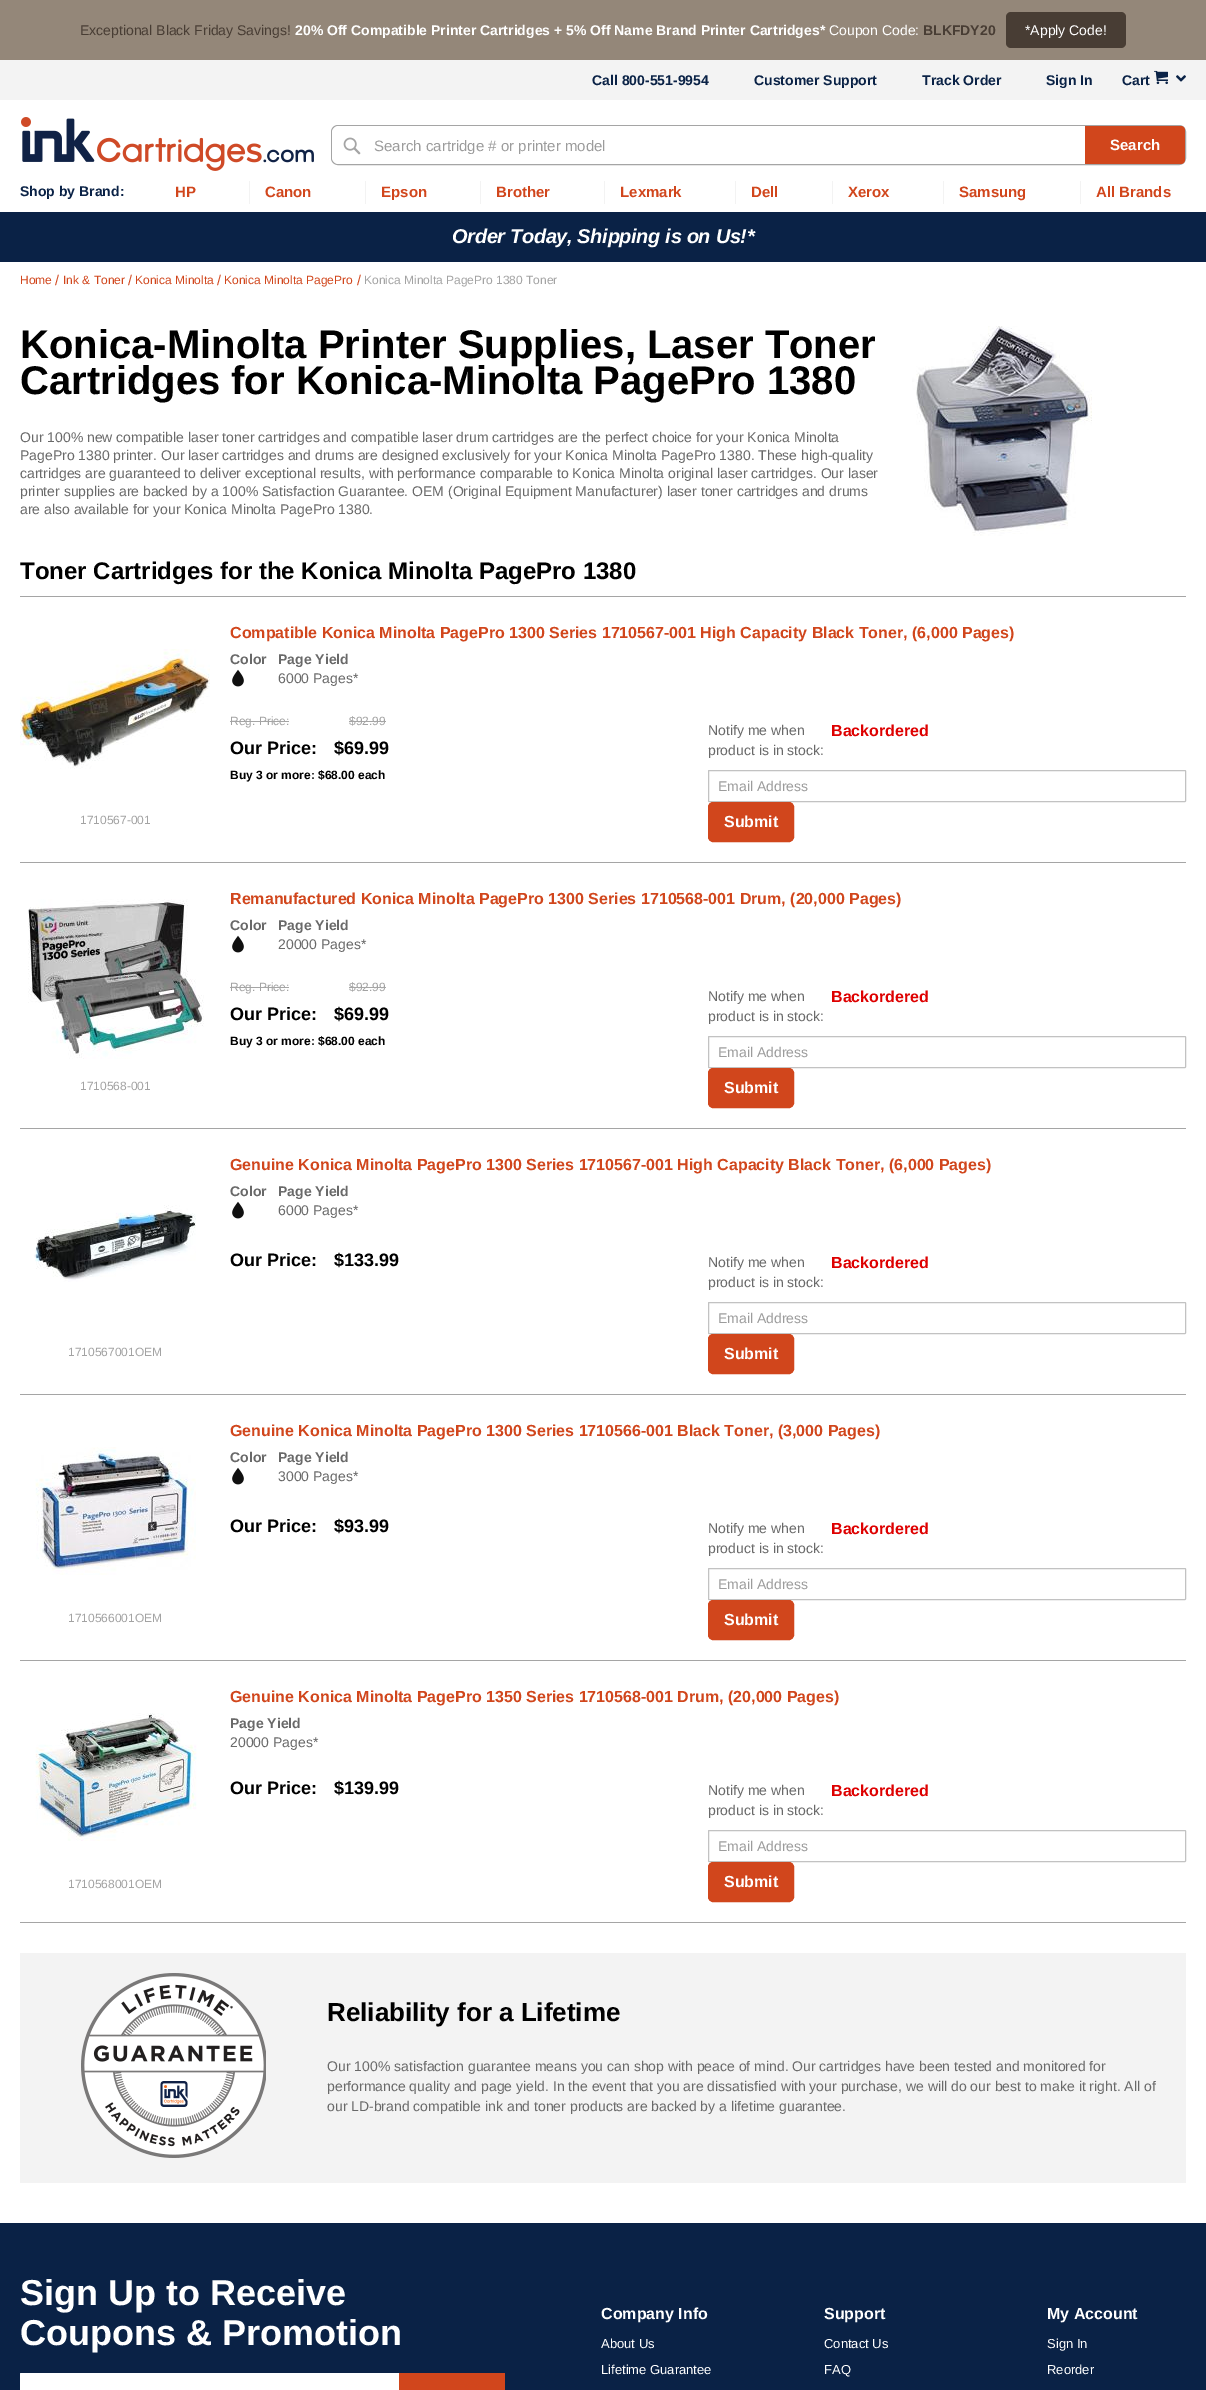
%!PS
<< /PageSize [1206 2390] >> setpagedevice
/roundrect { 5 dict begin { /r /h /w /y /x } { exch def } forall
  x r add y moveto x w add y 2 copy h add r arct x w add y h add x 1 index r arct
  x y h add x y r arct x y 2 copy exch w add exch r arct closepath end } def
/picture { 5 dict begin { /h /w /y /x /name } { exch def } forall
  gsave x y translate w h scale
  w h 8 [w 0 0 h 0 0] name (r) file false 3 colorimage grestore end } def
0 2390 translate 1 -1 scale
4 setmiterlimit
1 setgray
0 0 1206 2390 rectfill
0.58 0.529 0.475 setrgbcolor
0 0 1206 60 rectfill
/LiberationSans-Regular [14 0 0 -14 0 0] selectfont
0.282 0.239 0.204 setrgbcolor
80 35 moveto (Exceptional Black Friday Savings!) show
/LiberationSans-Bold [14 0 0 -14 0 0] selectfont
1 setgray
295 35 moveto (20% Off Compatible Printer Cartridges + 5% Off Name Brand Printer Cartridges*) show
/LiberationSans-Regular [14 0 0 -14 0 0] selectfont
829 35 moveto (Coupon Code:) show
/LiberationSans-Bold [14 0 0 -14 0 0] selectfont
0.282 0.239 0.204 setrgbcolor
923 35 moveto (BLKFDY20) show
1006 12 120 36 5 roundrect fill
/LiberationSans-Regular [14 0 0 -14 0 0] selectfont
1 setgray
1025 35 moveto (*Apply Code!) show
0.953 setgray
0 60 1206 40 rectfill
/LiberationSans-Bold [14 0 0 -14 0 0] selectfont
0.039 0.133 0.275 setrgbcolor
592 85 moveto (Call 800-551-9954) show
754 85 moveto (Customer Support) show
922 85 moveto (Track Order) show
1046 85 moveto (Sign In) show
1122 85 moveto (Cart) show
(img1.rgb) 1154 70 14 15 picture
(img2.rgb) 1176 75 10 7 picture
(img3.rgb) 21 117 293 54 picture
0.647 setgray
331.5 125.5 854 39 6.5 roundrect stroke
1 setgray
332 126 853 38 7 roundrect fill
(img4.rgb) 343 137 18 18 picture
gsave
374 137 786 17 rectclip
/LiberationSans-Regular [15 0 0 -15 0 0] selectfont
0.612 setgray
374 151 moveto (Search cartridge # or printer model) show
grestore
0.82 0.275 0.11 setrgbcolor
newpath 1085 126 moveto 1181 126 lineto 1183 126 1185 128 1185 130 curveto 1185 160 lineto 1185 162 1183 164 1181 164 curveto 1085 164 lineto closepath fill
/LiberationSans-Bold [15 0 0 -15 0 0] selectfont
1 setgray
1110 150 moveto (Search) show
/LiberationSans-Bold [14 0 0 -14 0 0] selectfont
0.039 0.133 0.275 setrgbcolor
20 196 moveto (Shop by Brand:) show
/LiberationSans-Bold [15 0 0 -15 0 0] selectfont
0.82 0.275 0.11 setrgbcolor
175 197 moveto (HP) show
0.953 setgray
249 181 1 23 rectfill
0.82 0.275 0.11 setrgbcolor
265 197 moveto (Canon) show
0.953 setgray
365 181 1 23 rectfill
0.82 0.275 0.11 setrgbcolor
381 197 moveto (Epson) show
0.953 setgray
480 181 1 23 rectfill
0.82 0.275 0.11 setrgbcolor
496 197 moveto (Brother) show
0.953 setgray
604 181 1 23 rectfill
0.82 0.275 0.11 setrgbcolor
620 197 moveto (Lexmark) show
0.953 setgray
735 181 1 23 rectfill
0.82 0.275 0.11 setrgbcolor
751 197 moveto (Dell) show
0.953 setgray
832 181 1 23 rectfill
0.82 0.275 0.11 setrgbcolor
848 197 moveto (Xerox) show
0.953 setgray
943 181 1 23 rectfill
0.82 0.275 0.11 setrgbcolor
959 197 moveto (Samsung) show
0.953 setgray
1080 181 1 23 rectfill
0.82 0.275 0.11 setrgbcolor
1096 197 moveto (All Brands) show
0.039 0.133 0.275 setrgbcolor
0 212 1206 50 rectfill
/LiberationSans-BoldItalic [20 0 0 -20 0 0] selectfont
1 setgray
452 243 moveto -0.35 0 (Order Today, Shipping is on Us!*) ashow
/LiberationSans-Regular [12 0 0 -12 0 0] selectfont
0.82 0.275 0.11 setrgbcolor
20 284 moveto (Home) show
/LiberationSans-Regular [14 0 0 -14 0 0] selectfont
55 285 moveto (/) show
/LiberationSans-Regular [12 0 0 -12 0 0] selectfont
63 284 moveto (Ink & Toner) show
/LiberationSans-Regular [14 0 0 -14 0 0] selectfont
128 285 moveto (/) show
/LiberationSans-Regular [12 0 0 -12 0 0] selectfont
135 284 moveto (Konica Minolta) show
/LiberationSans-Regular [14 0 0 -14 0 0] selectfont
217 285 moveto (/) show
/LiberationSans-Regular [12 0 0 -12 0 0] selectfont
224 284 moveto (Konica Minolta PagePro) show
/LiberationSans-Regular [14 0 0 -14 0 0] selectfont
357 285 moveto (/) show
/LiberationSans-Regular [12 0 0 -12 0 0] selectfont
0.639 setgray
364 284 moveto (Konica Minolta PagePro 1380 Toner) show
/LiberationSans-Bold [40 0 0 -40 0 0] selectfont
0 setgray
20 358 moveto (Konica-Minolta Printer Supplies, Laser Toner) show
20 394 moveto (Cartridges for Konica-Minolta PagePro 1380) show
/LiberationSans-Regular [14 0 0 -14 0 0] selectfont
0.412 setgray
20 442 moveto (Our 100% new compatible laser toner cartridges and compatible laser drum cartridges are the perfect choice for your Konica Minolta) show
20 460 moveto (PagePro 1380 printer. Our laser cartridges and drums are designed exclusively for your Konica Minolta PagePro 1380. These high-quality) show
20 478 moveto (cartridges are guaranteed to deliver exceptional results, with performance comparable to Konica Minolta original laser cartridges. Our laser) show
20 496 moveto (printer supplies are backed by a 100% Satisfaction Guarantee. OEM \(Original Equipment Manufacturer\) laser toner cartridges and drums) show
20 514 moveto (are also available for your Konica Minolta PagePro 1380.) show
(img5.rgb) 912 326 180 210 picture
/LiberationSans-Bold [24 0 0 -24 0 0] selectfont
0 setgray
20 579 moveto (Toner Cartridges for the Konica Minolta PagePro 1380) show
0.647 setgray
20 596 1166 1 rectfill
(img6.rgb) 20 649 190 120 picture
/LiberationSans-Regular [12 0 0 -12 0 0] selectfont
0.639 setgray
80 824 moveto (1710567-001) show
/LiberationSans-Bold [16 0 0 -16 0 0] selectfont
0.82 0.275 0.11 setrgbcolor
230 638 moveto (Compatible Konica Minolta PagePro 1300 Series 1710567-001 High Capacity Black Toner, \(6,000 Pages\)) show
/LiberationSans-Bold [14 0 0 -14 0 0] selectfont
0.412 setgray
230 664 moveto (Color) show
(img7.rgb) 232 669 12 18 picture
278 664 moveto (Page Yield) show
/LiberationSans-Regular [14 0 0 -14 0 0] selectfont
278 683 moveto (6000 Pages*) show
/LiberationSans-Regular [12 0 0 -12 0 0] selectfont
0.639 setgray
230 725 moveto (Reg. Price:) show
0.647 setgray
230 721 59 1 rectfill
0.639 setgray
349 725 moveto ($92.99) show
0.647 setgray
349 721 37 1 rectfill
/LiberationSans-Bold [18 0 0 -18 0 0] selectfont
0 setgray
230 754 moveto (Our Price:) show
334 754 moveto ($69.99) show
/LiberationSans-Bold [12 0 0 -12 0 0] selectfont
230 779 moveto (Buy 3 or more: $68.00 each) show
/LiberationSans-Regular [14 0 0 -14 0 0] selectfont
0.412 setgray
708 735 moveto (Notify me when) show
708 755 moveto (product is in stock:) show
0.761 setgray
708.5 770.5 477 31 0.5 roundrect stroke
0.612 setgray
718 791 moveto (Email Address) show
0.82 0.275 0.11 setrgbcolor
708.5 802.5 85 39 4.5 roundrect gsave fill grestore
stroke
/LiberationSans-Bold [16 0 0 -16 0 0] selectfont
1 setgray
724 827 moveto (Submit) show
0.871 0 0 setrgbcolor
831 736 moveto (Backordered) show
0.647 setgray
20 862 1166 1 rectfill
(img8.rgb) 28 899 176 160 picture
/LiberationSans-Regular [12 0 0 -12 0 0] selectfont
0.639 setgray
80 1090 moveto (1710568-001) show
/LiberationSans-Bold [16 0 0 -16 0 0] selectfont
0.82 0.275 0.11 setrgbcolor
230 904 moveto (Remanufactured Konica Minolta PagePro 1300 Series 1710568-001 Drum, \(20,000 Pages\)) show
/LiberationSans-Bold [14 0 0 -14 0 0] selectfont
0.412 setgray
230 930 moveto (Color) show
(img7.rgb) 232 935 12 18 picture
278 930 moveto (Page Yield) show
/LiberationSans-Regular [14 0 0 -14 0 0] selectfont
278 949 moveto (20000 Pages*) show
/LiberationSans-Regular [12 0 0 -12 0 0] selectfont
0.639 setgray
230 991 moveto (Reg. Price:) show
0.647 setgray
230 987 59 1 rectfill
0.639 setgray
349 991 moveto ($92.99) show
0.647 setgray
349 987 37 1 rectfill
/LiberationSans-Bold [18 0 0 -18 0 0] selectfont
0 setgray
230 1020 moveto (Our Price:) show
334 1020 moveto ($69.99) show
/LiberationSans-Bold [12 0 0 -12 0 0] selectfont
230 1045 moveto (Buy 3 or more: $68.00 each) show
/LiberationSans-Regular [14 0 0 -14 0 0] selectfont
0.412 setgray
708 1001 moveto (Notify me when) show
708 1021 moveto (product is in stock:) show
0.761 setgray
708.5 1036.5 477 31 0.5 roundrect stroke
0.612 setgray
718 1057 moveto (Email Address) show
0.82 0.275 0.11 setrgbcolor
708.5 1068.5 85 39 4.5 roundrect gsave fill grestore
stroke
/LiberationSans-Bold [16 0 0 -16 0 0] selectfont
1 setgray
724 1093 moveto (Submit) show
0.871 0 0 setrgbcolor
831 1002 moveto (Backordered) show
0.647 setgray
20 1128 1166 1 rectfill
(img9.rgb) 34 1205 162 77 picture
/LiberationSans-Regular [12 0 0 -12 0 0] selectfont
0.639 setgray
68 1356 moveto (1710567001OEM) show
/LiberationSans-Bold [16 0 0 -16 0 0] selectfont
0.82 0.275 0.11 setrgbcolor
230 1170 moveto (Genuine Konica Minolta PagePro 1300 Series 1710567-001 High Capacity Black Toner, \(6,000 Pages\)) show
/LiberationSans-Bold [14 0 0 -14 0 0] selectfont
0.412 setgray
230 1196 moveto (Color) show
(img7.rgb) 232 1201 12 18 picture
278 1196 moveto (Page Yield) show
/LiberationSans-Regular [14 0 0 -14 0 0] selectfont
278 1215 moveto (6000 Pages*) show
/LiberationSans-Bold [18 0 0 -18 0 0] selectfont
0 setgray
230 1266 moveto (Our Price:) show
334 1266 moveto ($133.99) show
/LiberationSans-Regular [14 0 0 -14 0 0] selectfont
0.412 setgray
708 1267 moveto (Notify me when) show
708 1287 moveto (product is in stock:) show
0.761 setgray
708.5 1302.5 477 31 0.5 roundrect stroke
0.612 setgray
718 1323 moveto (Email Address) show
0.82 0.275 0.11 setrgbcolor
708.5 1334.5 85 39 4.5 roundrect gsave fill grestore
stroke
/LiberationSans-Bold [16 0 0 -16 0 0] selectfont
1 setgray
724 1359 moveto (Submit) show
0.871 0 0 setrgbcolor
831 1268 moveto (Backordered) show
0.647 setgray
20 1394 1166 1 rectfill
(img10.rgb) 35 1447 161 128 picture
/LiberationSans-Regular [12 0 0 -12 0 0] selectfont
0.639 setgray
68 1622 moveto (1710566001OEM) show
/LiberationSans-Bold [16 0 0 -16 0 0] selectfont
0.82 0.275 0.11 setrgbcolor
230 1436 moveto (Genuine Konica Minolta PagePro 1300 Series 1710566-001 Black Toner, \(3,000 Pages\)) show
/LiberationSans-Bold [14 0 0 -14 0 0] selectfont
0.412 setgray
230 1462 moveto (Color) show
(img7.rgb) 232 1467 12 18 picture
278 1462 moveto (Page Yield) show
/LiberationSans-Regular [14 0 0 -14 0 0] selectfont
278 1481 moveto (3000 Pages*) show
/LiberationSans-Bold [18 0 0 -18 0 0] selectfont
0 setgray
230 1532 moveto (Our Price:) show
334 1532 moveto ($93.99) show
/LiberationSans-Regular [14 0 0 -14 0 0] selectfont
0.412 setgray
708 1533 moveto (Notify me when) show
708 1553 moveto (product is in stock:) show
0.761 setgray
708.5 1568.5 477 31 0.5 roundrect stroke
0.612 setgray
718 1589 moveto (Email Address) show
0.82 0.275 0.11 setrgbcolor
708.5 1600.5 85 39 4.5 roundrect gsave fill grestore
stroke
/LiberationSans-Bold [16 0 0 -16 0 0] selectfont
1 setgray
724 1625 moveto (Submit) show
0.871 0 0 setrgbcolor
831 1534 moveto (Backordered) show
0.647 setgray
20 1660 1166 1 rectfill
20 1922 1166 1 rectfill
(img11.rgb) 35 1713 162 128 picture
/LiberationSans-Regular [12 0 0 -12 0 0] selectfont
0.639 setgray
68 1888 moveto (1710568001OEM) show
/LiberationSans-Bold [16 0 0 -16 0 0] selectfont
0.82 0.275 0.11 setrgbcolor
230 1702 moveto (Genuine Konica Minolta PagePro 1350 Series 1710568-001 Drum, \(20,000 Pages\)) show
/LiberationSans-Bold [14 0 0 -14 0 0] selectfont
0.412 setgray
230 1728 moveto (Page Yield) show
/LiberationSans-Regular [14 0 0 -14 0 0] selectfont
230 1747 moveto (20000 Pages*) show
/LiberationSans-Bold [18 0 0 -18 0 0] selectfont
0 setgray
230 1794 moveto (Our Price:) show
334 1794 moveto ($139.99) show
/LiberationSans-Regular [14 0 0 -14 0 0] selectfont
0.412 setgray
708 1795 moveto (Notify me when) show
708 1815 moveto (product is in stock:) show
0.761 setgray
708.5 1830.5 477 31 0.5 roundrect stroke
0.612 setgray
718 1851 moveto (Email Address) show
0.82 0.275 0.11 setrgbcolor
708.5 1862.5 85 39 4.5 roundrect gsave fill grestore
stroke
/LiberationSans-Bold [16 0 0 -16 0 0] selectfont
1 setgray
724 1887 moveto (Submit) show
0.871 0 0 setrgbcolor
831 1796 moveto (Backordered) show
0.953 setgray
20 1953 1166 230 rectfill
(img12.rgb) 81 1973 185 185 picture
/LiberationSans-Bold [26 0 0 -26 0 0] selectfont
0 setgray
327 2021 moveto (Reliability for a Lifetime) show
/LiberationSans-Regular [14 0 0 -14 0 0] selectfont
0.412 setgray
327 2071 moveto (Our 100% satisfaction guarantee means you can shop with peace of mind. Our cartridges have been tested and monitored for) show
327 2091 moveto (performance quality and page yield. In the event that you are dissatisfied with your purchase, we will do our best to make it right. All of) show
327 2111 moveto (our LD-brand compatible ink and toner products are backed by a lifetime guarantee.) show
0.039 0.133 0.275 setrgbcolor
0 2223 1206 167 rectfill
/LiberationSans-Bold [36 0 0 -36 0 0] selectfont
1 setgray
20 2305 moveto (Sign Up to Receive) show
20 2345 moveto (Coupons & Promotion) show
20 2373 380 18 1 roundrect fill
0.82 0.275 0.11 setrgbcolor
399 2373 106 17 rectfill
/LiberationSans-Bold [16 0 0 -16 0 0] selectfont
1 setgray
601 2319 moveto (Company Info) show
/LiberationSans-Regular [13 0 0 -13 0 0] selectfont
601 2348 moveto (About Us) show
601 2374 moveto (Lifetime Guarantee) show
/LiberationSans-Bold [16 0 0 -16 0 0] selectfont
824 2319 moveto (Support) show
/LiberationSans-Regular [13 0 0 -13 0 0] selectfont
824 2348 moveto (Contact Us) show
824 2374 moveto (FAQ) show
/LiberationSans-Bold [16 0 0 -16 0 0] selectfont
1047 2319 moveto (My Account) show
/LiberationSans-Regular [13 0 0 -13 0 0] selectfont
1047 2348 moveto (Sign In) show
1047 2374 moveto (Reorder) show
showpage
